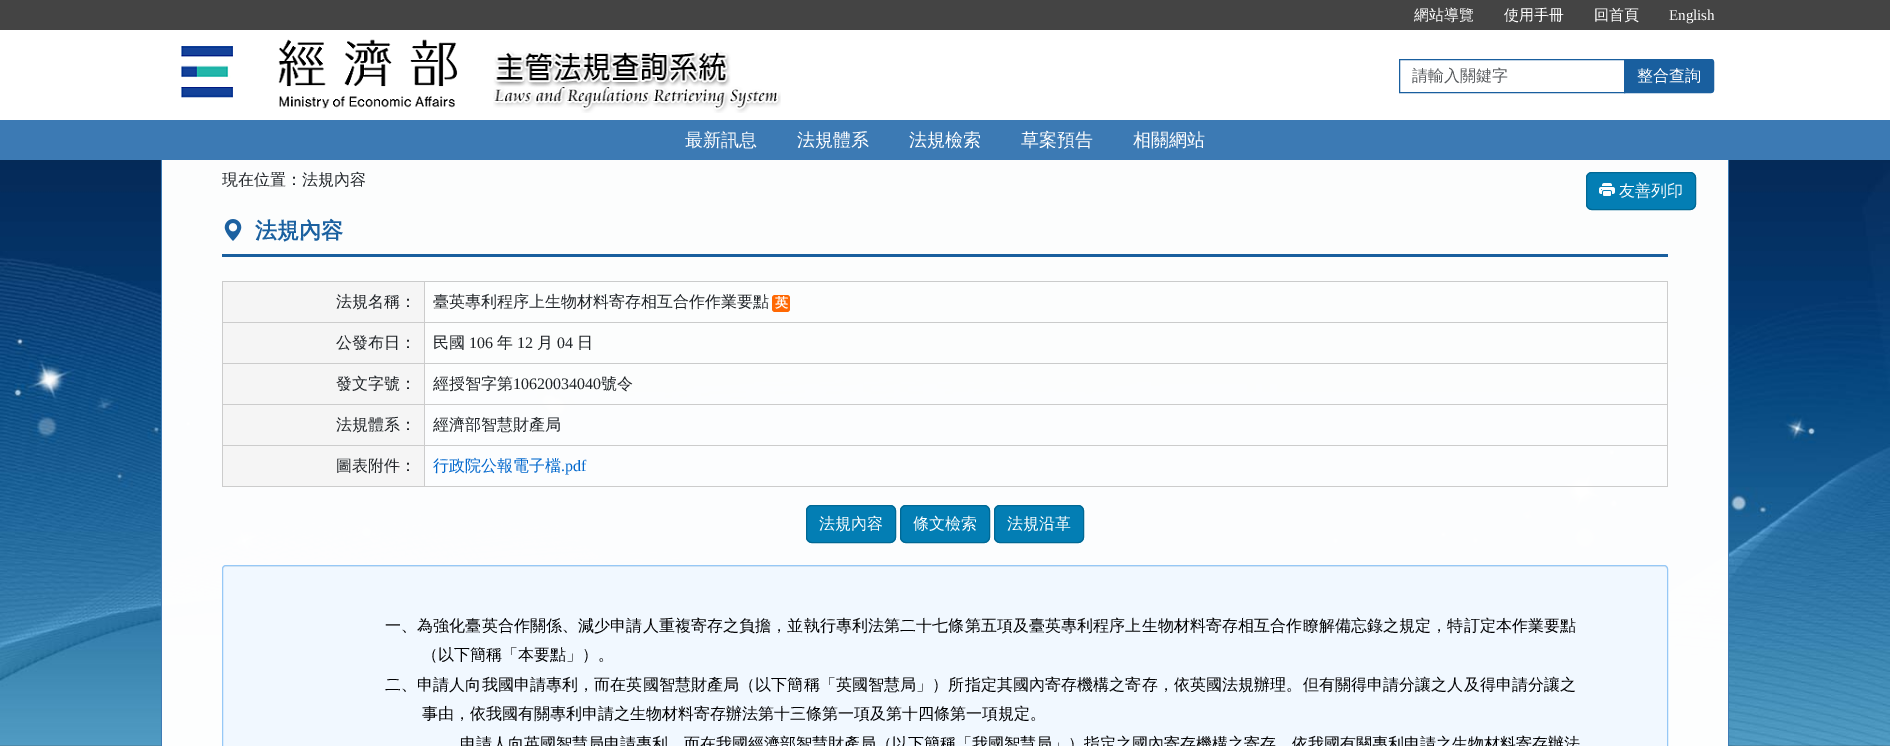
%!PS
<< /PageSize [1890 746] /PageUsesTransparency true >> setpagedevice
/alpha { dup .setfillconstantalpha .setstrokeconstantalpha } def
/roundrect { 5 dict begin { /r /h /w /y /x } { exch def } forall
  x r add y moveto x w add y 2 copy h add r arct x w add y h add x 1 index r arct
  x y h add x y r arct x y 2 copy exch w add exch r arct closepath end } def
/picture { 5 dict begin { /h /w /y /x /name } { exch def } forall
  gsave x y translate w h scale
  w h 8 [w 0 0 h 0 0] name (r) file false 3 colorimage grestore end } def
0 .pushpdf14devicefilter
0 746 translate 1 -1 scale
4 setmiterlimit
0.267 setgray
0 0 1890 746 rectfill
1 setgray
0 30 1890 90 rectfill
/WenQuanYiZenHei-Medium [15 0 0 -15 0 0] selectfont
1414 20 moveto (網站導覽) show
1504 20 moveto (使用手冊) show
1594 20 moveto (回首頁) show
/LiberationSerif-Regular [15 0 0 -15 0 0] selectfont
1669 20 moveto (English) show
(img1.rgb) 181 39 277 70 picture
(img2.rgb) 493 50 288 63 picture
0.098 0.373 0.624 setrgbcolor
1399.5 59.5 225 33 rectstroke
/WenQuanYiZenHei-Medium [16 0 0 -16 0 0] selectfont
0.349 0.361 0.373 setrgbcolor
1412 81 moveto (請輸入關鍵字) show
0.098 0.373 0.624 setrgbcolor
newpath 1624.5 59.5 moveto 1711 59.5 lineto 1712.5 59.5 1713.5 60.5 1713.5 62 curveto 1713.5 90 lineto 1713.5 91.5 1712.5 92.5 1711 92.5 curveto 1624.5 92.5 lineto closepath gsave fill grestore
stroke
1 setgray
1637 81 moveto (整合查詢) show
0.235 0.478 0.706 setrgbcolor
0 120 1890 40 rectfill
/WenQuanYiZenHei-Medium [18 0 0 -18 0 0] selectfont
1 setgray
685 146 moveto (最新訊息) show
797 146 moveto (法規體系) show
909 146 moveto (法規檢索) show
1021 146 moveto (草案預告) show
1133 146 moveto (相關網站) show
(img3.rgb) 0 160 1890 586 picture
0.99 alpha
162 160 1566 586 rectfill
1 alpha
0.243 0.482 0.71 setrgbcolor
1728 160 1 586 rectfill
161 160 1 586 rectfill
/WenQuanYiZenHei-Medium [16 0 0 -16 0 0] selectfont
0.129 0.145 0.161 setrgbcolor
222 185 moveto (現在位置：法規內容) show
0.012 0.494 0.706 setrgbcolor
1586 172 110 38 6 roundrect fill
0.99 alpha
0 0.408 0.58 setrgbcolor
1586.5 172.5 109 37 5.5 roundrect stroke
1 alpha
(img4.rgb) 1599 183 16 13 picture
1 setgray
1619 196 moveto (友善列印) show
0.098 0.373 0.62 setrgbcolor
222 254 1446 3 rectfill
(img5.rgb) 224 219 18 22 picture
/WenQuanYiZenHei-Bold [22 0 0 -22 0 0] selectfont
0.106 0.38 0.627 setrgbcolor
255 238 moveto (法規內容) show
0.961 setgray
222 282 202 41 rectfill
0.792 0.796 0.796 setrgbcolor
222 281 1446 1 rectfill
0.961 setgray
222 323 203 164 rectfill
0.8 setgray
424 404 1244 1 rectfill
424 445 1244 1 rectfill
0.99 alpha
0.871 0.886 0.902 setrgbcolor
222 486 1446 1 rectfill
0.8 setgray
1667 445 1 42 rectfill
1667 404 1 42 rectfill
1667 363 1 42 rectfill
1667 322 1 42 rectfill
1667 281 1 42 rectfill
0.871 0.886 0.902 setrgbcolor
222 322 202 1 rectfill
222 363 202 1 rectfill
222 404 202 1 rectfill
222 445 202 1 rectfill
0.8 setgray
424 486 1244 1 rectfill
424 445 1 42 rectfill
222 445 203 1 rectfill
424 404 1 42 rectfill
222 404 203 1 rectfill
424 363 1 42 rectfill
222 363 203 1 rectfill
1 alpha
0.792 0.796 0.796 setrgbcolor
424 363 1244 1 rectfill
0.99 alpha
0.8 setgray
424 322 1 42 rectfill
222 322 203 1 rectfill
1 alpha
0.792 0.796 0.796 setrgbcolor
424 322 1244 1 rectfill
0.8 setgray
424 281 1 42 rectfill
0.99 alpha
222 486 203 1 rectfill
222 445 1 42 rectfill
222 404 1 42 rectfill
222 363 1 42 rectfill
222 322 1 42 rectfill
222 281 1 42 rectfill
/WenQuanYiZenHei-Medium [16 0 0 -16 0 0] selectfont
1 alpha
0.129 0.145 0.161 setrgbcolor
336 307 moveto (法規名稱：) show
433 307 moveto (臺英專利程序上生物材料寄存相互合作作業要點) show
1 0.408 0.012 setrgbcolor
772 295 18 17 3 roundrect fill
/WenQuanYiZenHei-Bold [13 0 0 -13 0 0] selectfont
1 setgray
775 307 moveto (英) show
/WenQuanYiZenHei-Medium [16 0 0 -16 0 0] selectfont
0.129 0.145 0.161 setrgbcolor
336 348 moveto (公發布日：) show
433 348 moveto (民國) show
/LiberationSerif-Regular [16 0 0 -16 0 0] selectfont
469 348 moveto (106) show
/WenQuanYiZenHei-Medium [16 0 0 -16 0 0] selectfont
497 348 moveto (年) show
/LiberationSerif-Regular [16 0 0 -16 0 0] selectfont
517 348 moveto (12) show
/WenQuanYiZenHei-Medium [16 0 0 -16 0 0] selectfont
537 348 moveto (月) show
/LiberationSerif-Regular [16 0 0 -16 0 0] selectfont
557 348 moveto (04) show
/WenQuanYiZenHei-Medium [16 0 0 -16 0 0] selectfont
577 348 moveto (日) show
336 389 moveto (發文字號：) show
433 389 moveto (經授智字第) show
/LiberationSerif-Regular [16 0 0 -16 0 0] selectfont
513 389 moveto (10620034040) show
/WenQuanYiZenHei-Medium [16 0 0 -16 0 0] selectfont
601 389 moveto (號令) show
336 430 moveto (法規體系：) show
433 430 moveto (經濟部智慧財產局) show
336 471 moveto (圖表附件：) show
0.012 0.408 0.804 setrgbcolor
433 471 moveto (行政院公報電子檔) show
/LiberationSerif-Regular [16 0 0 -16 0 0] selectfont
561 471 moveto (.pdf) show
0.012 0.494 0.706 setrgbcolor
806 505 90 38 6 roundrect fill
0.99 alpha
0 0.408 0.58 setrgbcolor
806.5 505.5 89 37 5.5 roundrect stroke
/WenQuanYiZenHei-Medium [16 0 0 -16 0 0] selectfont
1 alpha
1 setgray
819 529 moveto (法規內容) show
0.012 0.494 0.706 setrgbcolor
900 505 90 38 6 roundrect fill
0.99 alpha
0 0.408 0.58 setrgbcolor
900.5 505.5 89 37 5.5 roundrect stroke
1 alpha
1 setgray
913 529 moveto (條文檢索) show
0.012 0.494 0.706 setrgbcolor
994 505 90 38 6 roundrect fill
0.99 alpha
0 0.408 0.58 setrgbcolor
994.5 505.5 89 37 5.5 roundrect stroke
1 alpha
1 setgray
1007 529 moveto (法規沿革) show
0.945 0.973 1 setrgbcolor
222 565 1446 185 4 roundrect fill
0.898 0.925 0.949 setrgbcolor
newpath 226 567 moveto 1664 567 lineto 1666 567 1667 568 1667 570 curveto 1667 569 lineto 1667 567 1666 566 1664 566 curveto 226 566 lineto 224 566 223 567 223 569 curveto 223 570 lineto 223 568 224 567 226 567 curveto closepath fill
0.99 alpha
0.584 0.78 0.965 setrgbcolor
222.5 565.5 1445 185 3.5 roundrect stroke
1 alpha
0.008 0.008 0.012 setrgbcolor
385 631 moveto 0.1 0 (一、為強化臺英合作關係、減少申請人重複寄存之負擔，並執行專利法第二十七條第五項及臺英專利程序上生物材料寄存相互合作瞭解備忘錄之規定，特訂定本作業要點) ashow
422 660 moveto (（以下簡稱「本要點」）。) show
385 690 moveto 0.1 0 (二、申請人向我國申請專利，而在英國智慧財產局（以下簡稱「英國智慧局」）所指定其國內寄存機構之寄存，依英國法規辦理。但有關得申請分讓之人及得申請分讓之) ashow
422 719 moveto (事由，依我國有關專利申請之生物材料寄存辦法第十三條第一項及第十四條第一項規定。) show
460 749 moveto (申請人向英國智慧局申請專利，而在我國經濟部智慧財產局（以下簡稱「我國智慧局」）指定之國內寄存機構之寄存，依我國有關專利申請之生物材料寄存辦法) show
.poppdf14devicefilter showpage
